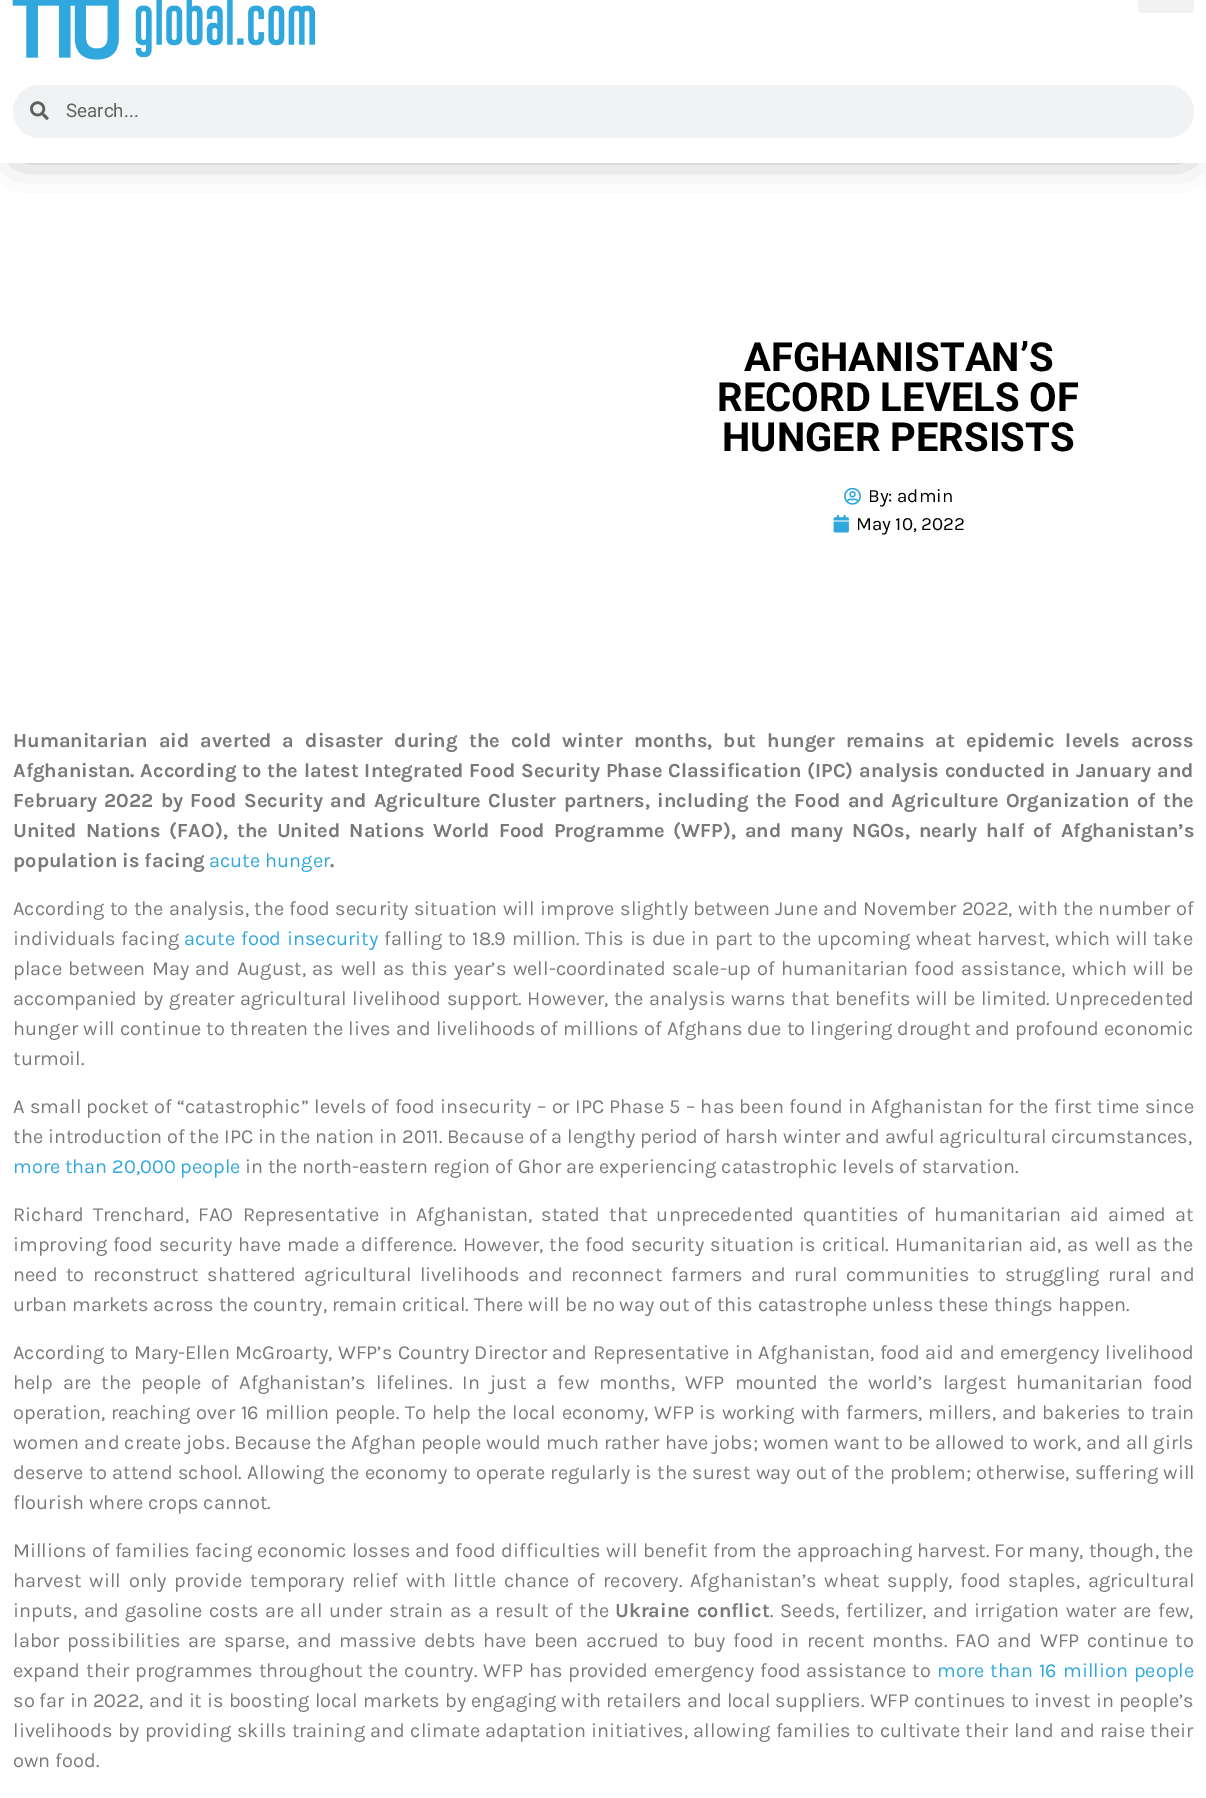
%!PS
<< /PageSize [1206 1798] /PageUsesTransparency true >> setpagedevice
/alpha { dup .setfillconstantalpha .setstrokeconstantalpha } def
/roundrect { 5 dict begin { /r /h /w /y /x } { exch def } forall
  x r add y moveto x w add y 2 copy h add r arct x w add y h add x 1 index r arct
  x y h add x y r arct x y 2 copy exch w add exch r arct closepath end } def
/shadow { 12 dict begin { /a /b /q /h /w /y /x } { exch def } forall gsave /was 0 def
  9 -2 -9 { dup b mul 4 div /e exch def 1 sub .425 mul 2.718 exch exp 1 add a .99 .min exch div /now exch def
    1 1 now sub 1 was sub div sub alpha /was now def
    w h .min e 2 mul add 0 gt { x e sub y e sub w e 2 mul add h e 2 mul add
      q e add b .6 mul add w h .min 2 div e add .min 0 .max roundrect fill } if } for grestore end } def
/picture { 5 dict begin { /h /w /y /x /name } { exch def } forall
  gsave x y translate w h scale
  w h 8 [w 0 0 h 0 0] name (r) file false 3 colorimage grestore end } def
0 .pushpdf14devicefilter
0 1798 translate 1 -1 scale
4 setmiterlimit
1 setgray
0 0 1206 1798 rectfill
0 setgray
21 -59 1164 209 0 19.5 0.5 shadow
1 setgray
0 0 1206 163 rectfill
(img1.rgb) 12 0 304 60 picture
0.949 setgray
1138 -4 56 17 4 roundrect fill
0.945 0.949 0.953 setrgbcolor
13 85 1181 53 26.5 roundrect fill
(img2.rgb) 30 101 19 19 picture
/Roboto-Regular [18.75 0 0 -18.75 0 0] selectfont
0.376 0.38 0.38 setrgbcolor
66 117 moveto (Search...) show
/Roboto-Bold [40 0 0 -40 0 0] selectfont
0 setgray
744 371 moveto (AFGHANISTAN’S) show
717 411 moveto (RECORD LEVELS OF) show
722 451 moveto (HUNGER PERSISTS) show
(img3.rgb) 844 488 17 17 picture
/Karla-Regular [18.75 0 0 -18.75 0 0] selectfont
868 502 moveto (By: admin) show
(img4.rgb) 833 515 16 18 picture
856 530 moveto (May 10, 2022) show
/Karla-Bold [20 0 0 -20 0 0] selectfont
0.478 setgray
13 747 moveto 6 0 32 (Humanitarian aid averted a disaster during the cold winter months, but hunger remains at epidemic levels across) widthshow
13 777 moveto 0.8 0 32 (Afghanistan. According to the latest Integrated Food Security Phase Classification \(IPC\) analysis conducted in January and) widthshow
13 807 moveto 2.4 0 32 (February 2022 by Food Security and Agriculture Cluster partners, including the Food and Agriculture Organization of the) widthshow
13 837 moveto 4 0 32 (United Nations \(FAO\), the United Nations World Food Programme \(WFP\), and many NGOs, nearly half of Afghanistan’s) widthshow
13 867 moveto (population is facing) show
/Karla-Regular [20 0 0 -20 0 0] selectfont
0.188 0.659 0.867 setrgbcolor
209 867 moveto (acute hunger) show
/Karla-Bold [20 0 0 -20 0 0] selectfont
0.478 setgray
330 867 moveto (.) show
/Karla-Regular [20 0 0 -20 0 0] selectfont
13 915 moveto 0.6 0 32 (According to the analysis, the food security situation will improve slightly between June and November 2022, with the number of) widthshow
13 945 moveto 0.8 0 32 (individuals facing) widthshow
0.188 0.659 0.867 setrgbcolor
184 945 moveto 0.8 0 32 (acute food insecurity) widthshow
0.478 setgray
384 945 moveto 0.8 0 32 (falling to 18.9 million. This is due in part to the upcoming wheat harvest, which will take) widthshow
13 975 moveto 1.75 0 32 (place between May and August, as well as this year’s well-coordinated scale-up of humanitarian food assistance, which will be) widthshow
13 1005 moveto 0.75 0 32 (accompanied by greater agricultural livelihood support. However, the analysis warns that benefits will be limited. Unprecedented) widthshow
13 1035 moveto 0.4 0 32 (hunger will continue to threaten the lives and livelihoods of millions of Afghans due to lingering drought and profound economic) widthshow
13 1065 moveto (turmoil.) show
13 1113 moveto 0.5 0 32 (A small pocket of “catastrophic” levels of food insecurity – or IPC Phase 5 – has been found in Afghanistan for the first time since) widthshow
13 1143 moveto (the introduction of the IPC in the nation in 2011. Because of a lengthy period of harsh winter and awful agricultural circumstances,) show
0.188 0.659 0.867 setrgbcolor
13 1173 moveto (more than 20,000 people) show
0.478 setgray
245 1173 moveto (in the north-eastern region of Ghor are experiencing catastrophic levels of starvation.) show
13 1221 moveto 4.5 0 32 (Richard Trenchard, FAO Representative in Afghanistan, stated that unprecedented quantities of humanitarian aid aimed at) widthshow
13 1251 moveto 1 0 32 (improving food security have made a difference. However, the food security situation is critical. Humanitarian aid, as well as the) widthshow
13 1281 moveto 3.75 0 32 (need to reconstruct shattered agricultural livelihoods and reconnect farmers and rural communities to struggling rural and) widthshow
13 1311 moveto (urban markets across the country, remain critical. There will be no way out of this catastrophe unless these things happen.) show
13 1359 moveto 0.6 0 32 (According to Mary-Ellen McGroarty, WFP’s Country Director and Representative in Afghanistan, food aid and emergency livelihood) widthshow
13 1389 moveto 5.25 0 32 (help are the people of Afghanistan’s lifelines. In just a few months, WFP mounted the world’s largest humanitarian food) widthshow
13 1419 moveto 1 0 32 (operation, reaching over 16 million people. To help the local economy, WFP is working with farmers, millers, and bakeries to train) widthshow
13 1449 moveto 0.25 0 32 (women and create jobs. Because the Afghan people would much rather have jobs; women want to be allowed to work, and all girls) widthshow
13 1479 moveto 0.5 0 32 (deserve to attend school. Allowing the economy to operate regularly is the surest way out of the problem; otherwise, suffering will) widthshow
13 1509 moveto (flourish where crops cannot.) show
13 1557 moveto 0.4 0 32 (Millions of families facing economic losses and food difficulties will benefit from the approaching harvest. For many, though, the) widthshow
13 1587 moveto 3 0 32 (harvest will only provide temporary relief with little chance of recovery. Afghanistan’s wheat supply, food staples, agricultural) widthshow
13 1617 moveto 1.75 0 32 (inputs, and gasoline costs are all under strain as a result of the) widthshow
/Karla-Bold [20 0 0 -20 0 0] selectfont
615 1617 moveto 1.75 0 32 (Ukraine conflict) widthshow
/Karla-Regular [20 0 0 -20 0 0] selectfont
770 1617 moveto 1.75 0 32 (. Seeds, fertilizer, and irrigation water are few,) widthshow
13 1647 moveto 2.75 0 32 (labor possibilities are sparse, and massive debts have been accrued to buy food in recent months. FAO and WFP continue to) widthshow
13 1677 moveto 1.25 0 32 (expand their programmes throughout the country. WFP has provided emergency food assistance to) widthshow
0.188 0.659 0.867 setrgbcolor
937 1677 moveto 1.25 0 32 (more than 16 million people) widthshow
0.478 setgray
13 1707 moveto 0.3 0 32 (so far in 2022, and it is boosting local markets by engaging with retailers and local suppliers. WFP continues to invest in people’s) widthshow
13 1737 moveto 0.6 0 32 (livelihoods by providing skills training and climate adaptation initiatives, allowing families to cultivate their land and raise their) widthshow
13 1767 moveto (own food.) show
.poppdf14devicefilter showpage
